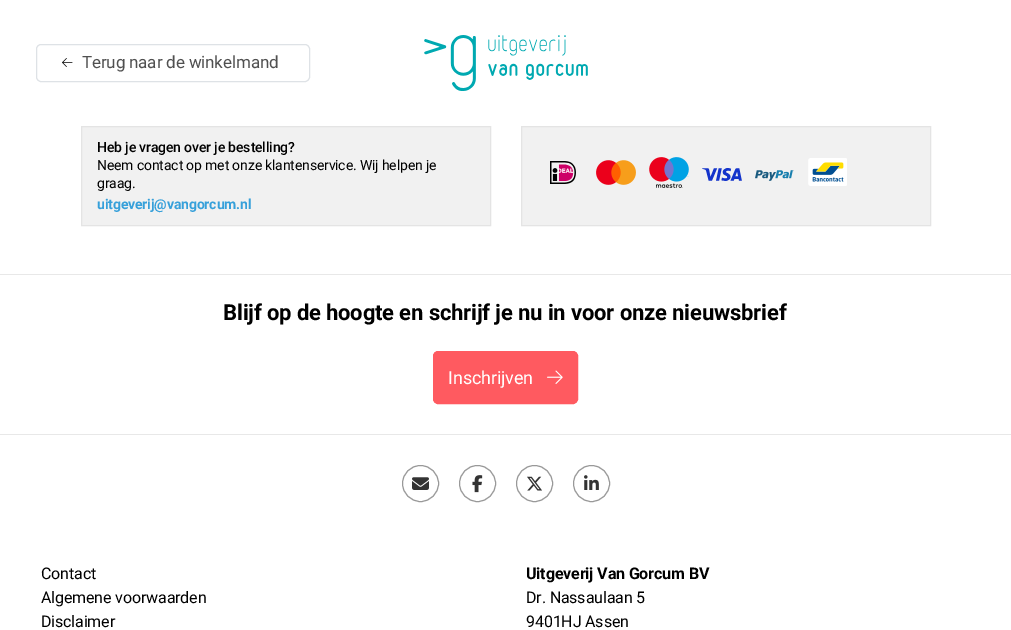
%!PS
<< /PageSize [1011 630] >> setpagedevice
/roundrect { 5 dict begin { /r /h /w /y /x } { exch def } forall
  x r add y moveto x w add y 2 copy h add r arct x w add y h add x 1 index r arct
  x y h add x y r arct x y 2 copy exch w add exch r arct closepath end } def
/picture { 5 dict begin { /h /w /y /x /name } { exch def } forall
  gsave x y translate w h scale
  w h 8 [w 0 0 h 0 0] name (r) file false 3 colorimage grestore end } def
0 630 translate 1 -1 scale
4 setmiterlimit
1 setgray
0 0 1011 630 rectfill
0.871 0.886 0.902 setrgbcolor
36.5 44.5 273 37 4.5 roundrect stroke
(img1.rgb) 62 58 11 9 picture
/Roboto-Regular [17 0 0 -17 0 0] selectfont
0.314 setgray
82 68 moveto -0.15 0 (Terug naar de winkelmand) ashow
(img2.rgb) 424 35 164 56 picture
0.945 setgray
newpath 81.5 126.5 moveto 490.5 126.5 lineto 490.5 225.5 lineto 81.5 225.5 lineto closepath gsave fill grestore
0.894 setgray
stroke
/Roboto-Medium [14 0 0 -14 0 0] selectfont
0 setgray
97 152 moveto -0.15 0 (Heb je vragen over je bestelling?) ashow
/Roboto-Regular [14 0 0 -14 0 0] selectfont
97 170 moveto -0.15 0 (Neem contact op met onze klantenservice. Wij helpen je) ashow
97 188 moveto -0.15 0 (graag.) ashow
/Roboto-Bold [14 0 0 -14 0 0] selectfont
0.212 0.627 0.855 setrgbcolor
97 209 moveto -0.15 0 (uitgeverij@vangorcum.nl) ashow
0.945 setgray
newpath 521.5 126.5 moveto 930.5 126.5 lineto 930.5 225.5 lineto 521.5 225.5 lineto closepath gsave fill grestore
0.894 setgray
stroke
(img3.rgb) 550 161 26 23 picture
(img4.rgb) 596 160 40 25 picture
(img5.rgb) 649 157 40 31 picture
(img6.rgb) 702 168 40 13 picture
(img7.rgb) 755 170 39 11 picture
(img8.rgb) 808 158 39 28 picture
0.91 setgray
0 274 1011 1 rectfill
0 434 1011 1 rectfill
/Roboto-Bold [22 0 0 -22 0 0] selectfont
0 setgray
223 320 moveto -0.15 0 (Blijf op de hoogte en schrijf je nu in voor onze nieuwsbrief) ashow
1 0.353 0.376 setrgbcolor
433.5 351.5 144 52 4.5 roundrect gsave fill grestore
stroke
/Roboto-Regular [18 0 0 -18 0 0] selectfont
1 setgray
448 384 moveto -0.15 0 (Inschrijven) ashow
(img9.rgb) 547 370 16 14 picture
0.6 setgray
newpath 420.5 483.5 18 0 360 arc closepath stroke
(img10.rgb) 412 477 17 13 picture
newpath 477.5 483.5 18 0 360 arc closepath stroke
(img11.rgb) 472 475 11 18 picture
newpath 534.5 483.5 18 0 360 arc closepath stroke
(img12.rgb) 527 476 15 15 picture
newpath 591.5 483.5 18 0 360 arc closepath stroke
(img13.rgb) 584 475 15 15 picture
/Roboto-Regular [16 0 0 -16 0 0] selectfont
0 setgray
41 579 moveto -0.15 0 (Contact) ashow
41 603 moveto -0.15 0 (Algemene voorwaarden) ashow
41 627 moveto -0.15 0 (Disclaimer) ashow
/Roboto-Bold [16 0 0 -16 0 0] selectfont
526 579 moveto -0.15 0 (Uitgeverij Van Gorcum BV) ashow
/Roboto-Regular [16 0 0 -16 0 0] selectfont
526 603 moveto -0.15 0 (Dr. Nassaulaan 5) ashow
526 627 moveto -0.15 0 (9401HJ Assen) ashow
showpage
